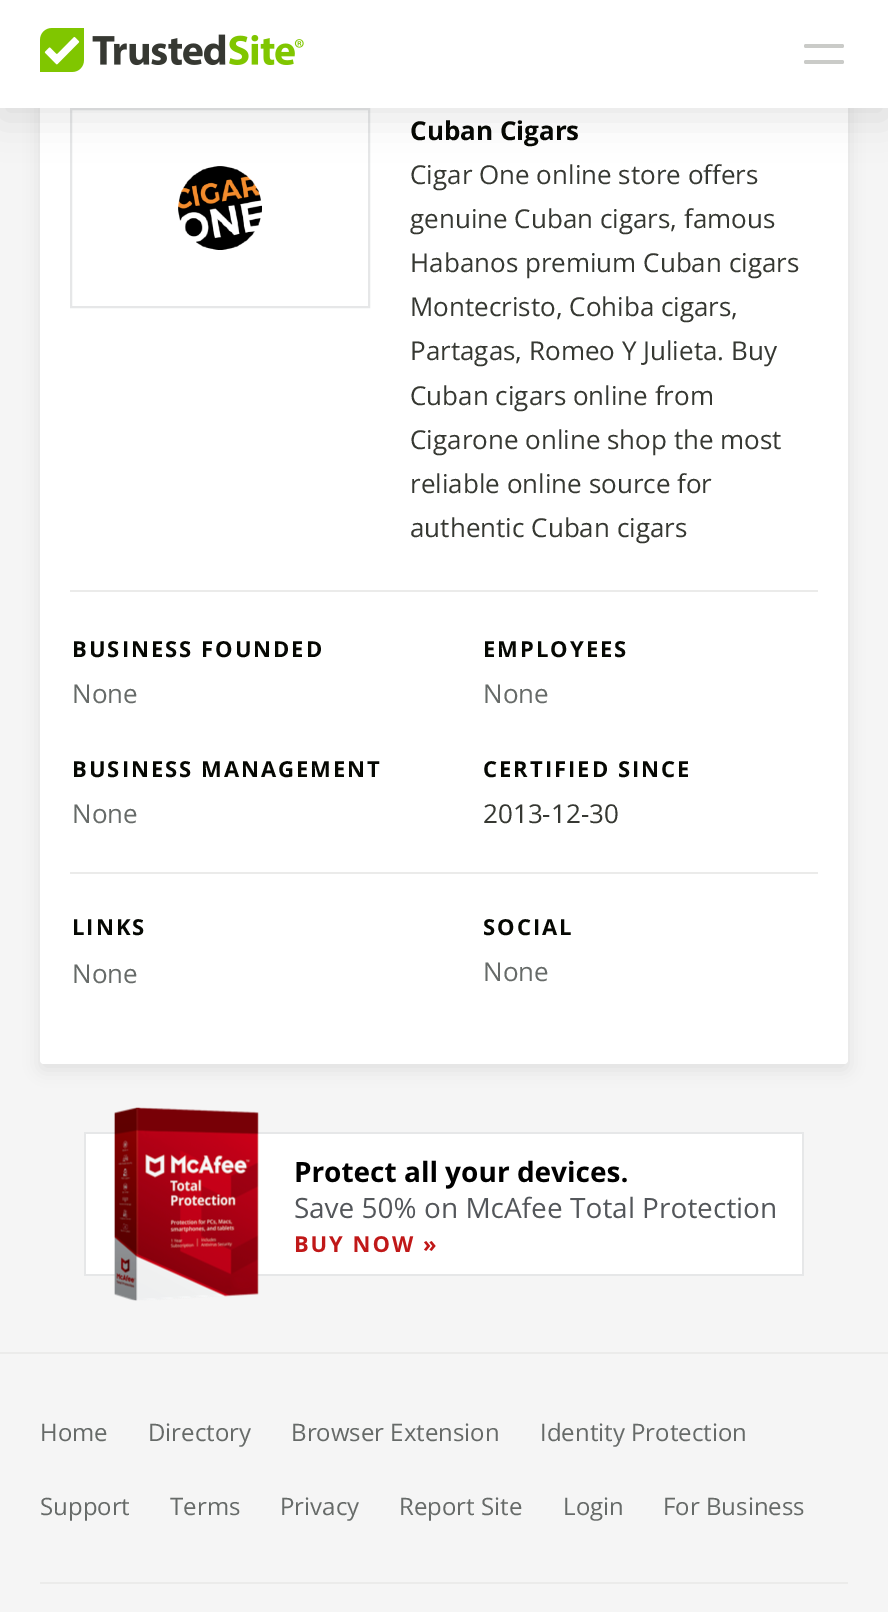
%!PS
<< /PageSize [888 1612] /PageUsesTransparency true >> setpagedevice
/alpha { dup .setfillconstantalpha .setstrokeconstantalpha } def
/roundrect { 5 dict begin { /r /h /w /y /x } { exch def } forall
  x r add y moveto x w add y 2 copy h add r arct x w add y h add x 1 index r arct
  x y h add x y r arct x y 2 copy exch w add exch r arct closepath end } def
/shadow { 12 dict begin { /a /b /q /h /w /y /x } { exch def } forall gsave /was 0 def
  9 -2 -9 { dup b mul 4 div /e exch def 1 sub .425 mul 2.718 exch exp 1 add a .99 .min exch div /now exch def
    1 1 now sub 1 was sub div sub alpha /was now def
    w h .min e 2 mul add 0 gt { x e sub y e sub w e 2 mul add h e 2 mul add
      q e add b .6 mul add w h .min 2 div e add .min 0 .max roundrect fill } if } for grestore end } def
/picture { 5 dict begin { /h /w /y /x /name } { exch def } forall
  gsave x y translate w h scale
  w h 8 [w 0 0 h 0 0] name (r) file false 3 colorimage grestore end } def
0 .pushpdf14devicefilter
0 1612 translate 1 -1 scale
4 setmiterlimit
0.961 setgray
0 0 888 1612 rectfill
0 setgray
40 -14 808 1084 4 8 0.08 shadow
1 setgray
40 -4 808 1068 4 roundrect fill
(img2.rgb) 178 166 84 84 picture
0.902 0.906 0.91 setrgbcolor
2 setlinewidth
71 109 298 198 rectstroke
0 setgray
0 10 888 108 0 20 0.1 shadow
1 setgray
0 0 888 108 rectfill
(img1.rgb) 40 28 264 44 picture
0.792 0.796 0.784 setrgbcolor
804 44 40 4 2 roundrect fill
804 60 40 4 2 roundrect fill
/OpenSans-Bold [26 0 0 -26 0 0] selectfont
0.024 0.031 0.012 setrgbcolor
410 140 moveto (Cuban Cigars) show
/OpenSans-Regular [26 0 0 -26 0 0] selectfont
0.212 0.22 0.196 setrgbcolor
410 184 moveto (Cigar One online store offers) show
410 228 moveto (genuine Cuban cigars, famous) show
410 272 moveto (Habanos premium Cuban cigars) show
410 316 moveto (Montecristo, Cohiba cigars,) show
410 360 moveto (Partagas, Romeo Y Julieta. Buy) show
410 405 moveto (Cuban cigars online from) show
410 449 moveto (Cigarone online shop the most) show
410 493 moveto (reliable online source for) show
410 537 moveto (authentic Cuban cigars) show
0.922 0.922 0.918 setrgbcolor
70 590 748 2 rectfill
/OpenSans-Bold [22 0 0 -22 0 0] selectfont
0.024 0.031 0.012 setrgbcolor
72 657 moveto 2 0 (BUSINESS FOUNDED) ashow
483 657 moveto 2 0 (EMPLOYEES) ashow
/OpenSans-Regular [26 0 0 -26 0 0] selectfont
0.4 0.416 0.408 setrgbcolor
72 703 moveto (None) show
483 703 moveto (None) show
/OpenSans-Bold [22 0 0 -22 0 0] selectfont
0.024 0.031 0.012 setrgbcolor
72 777 moveto 2 0 (BUSINESS MANAGEMENT) ashow
483 777 moveto 2 0 (CERTIFIED SINCE) ashow
/OpenSans-Regular [26 0 0 -26 0 0] selectfont
0.4 0.416 0.408 setrgbcolor
72 823 moveto (None) show
0.212 0.22 0.196 setrgbcolor
483 823 moveto (2013-12-30) show
0.922 0.922 0.918 setrgbcolor
70 872 748 2 rectfill
/OpenSans-Bold [22 0 0 -22 0 0] selectfont
0.024 0.031 0.012 setrgbcolor
72 935 moveto 2 0 (LINKS) ashow
483 935 moveto 2 0 (SOCIAL) ashow
/OpenSans-Regular [26 0 0 -26 0 0] selectfont
0.4 0.416 0.408 setrgbcolor
72 983 moveto (None) show
483 981 moveto (None) show
(img3.rgb) 84 1107 720 194 picture
0.922 0.922 0.918 setrgbcolor
0 1352 888 2 rectfill
40 1582 808 2 rectfill
/OpenSans-Regular [24 0 0 -24 0 0] selectfont
0.4 0.416 0.408 setrgbcolor
40 1441 moveto (Home) show
148 1441 moveto (Directory) show
291 1441 moveto (Browser Extension) show
540 1441 moveto (Identity Protection) show
40 1515 moveto (Support) show
170 1515 moveto (Terms) show
280 1515 moveto (Privacy) show
399 1515 moveto (Report Site) show
563 1515 moveto (Login) show
663 1515 moveto (For Business) show
.poppdf14devicefilter showpage
